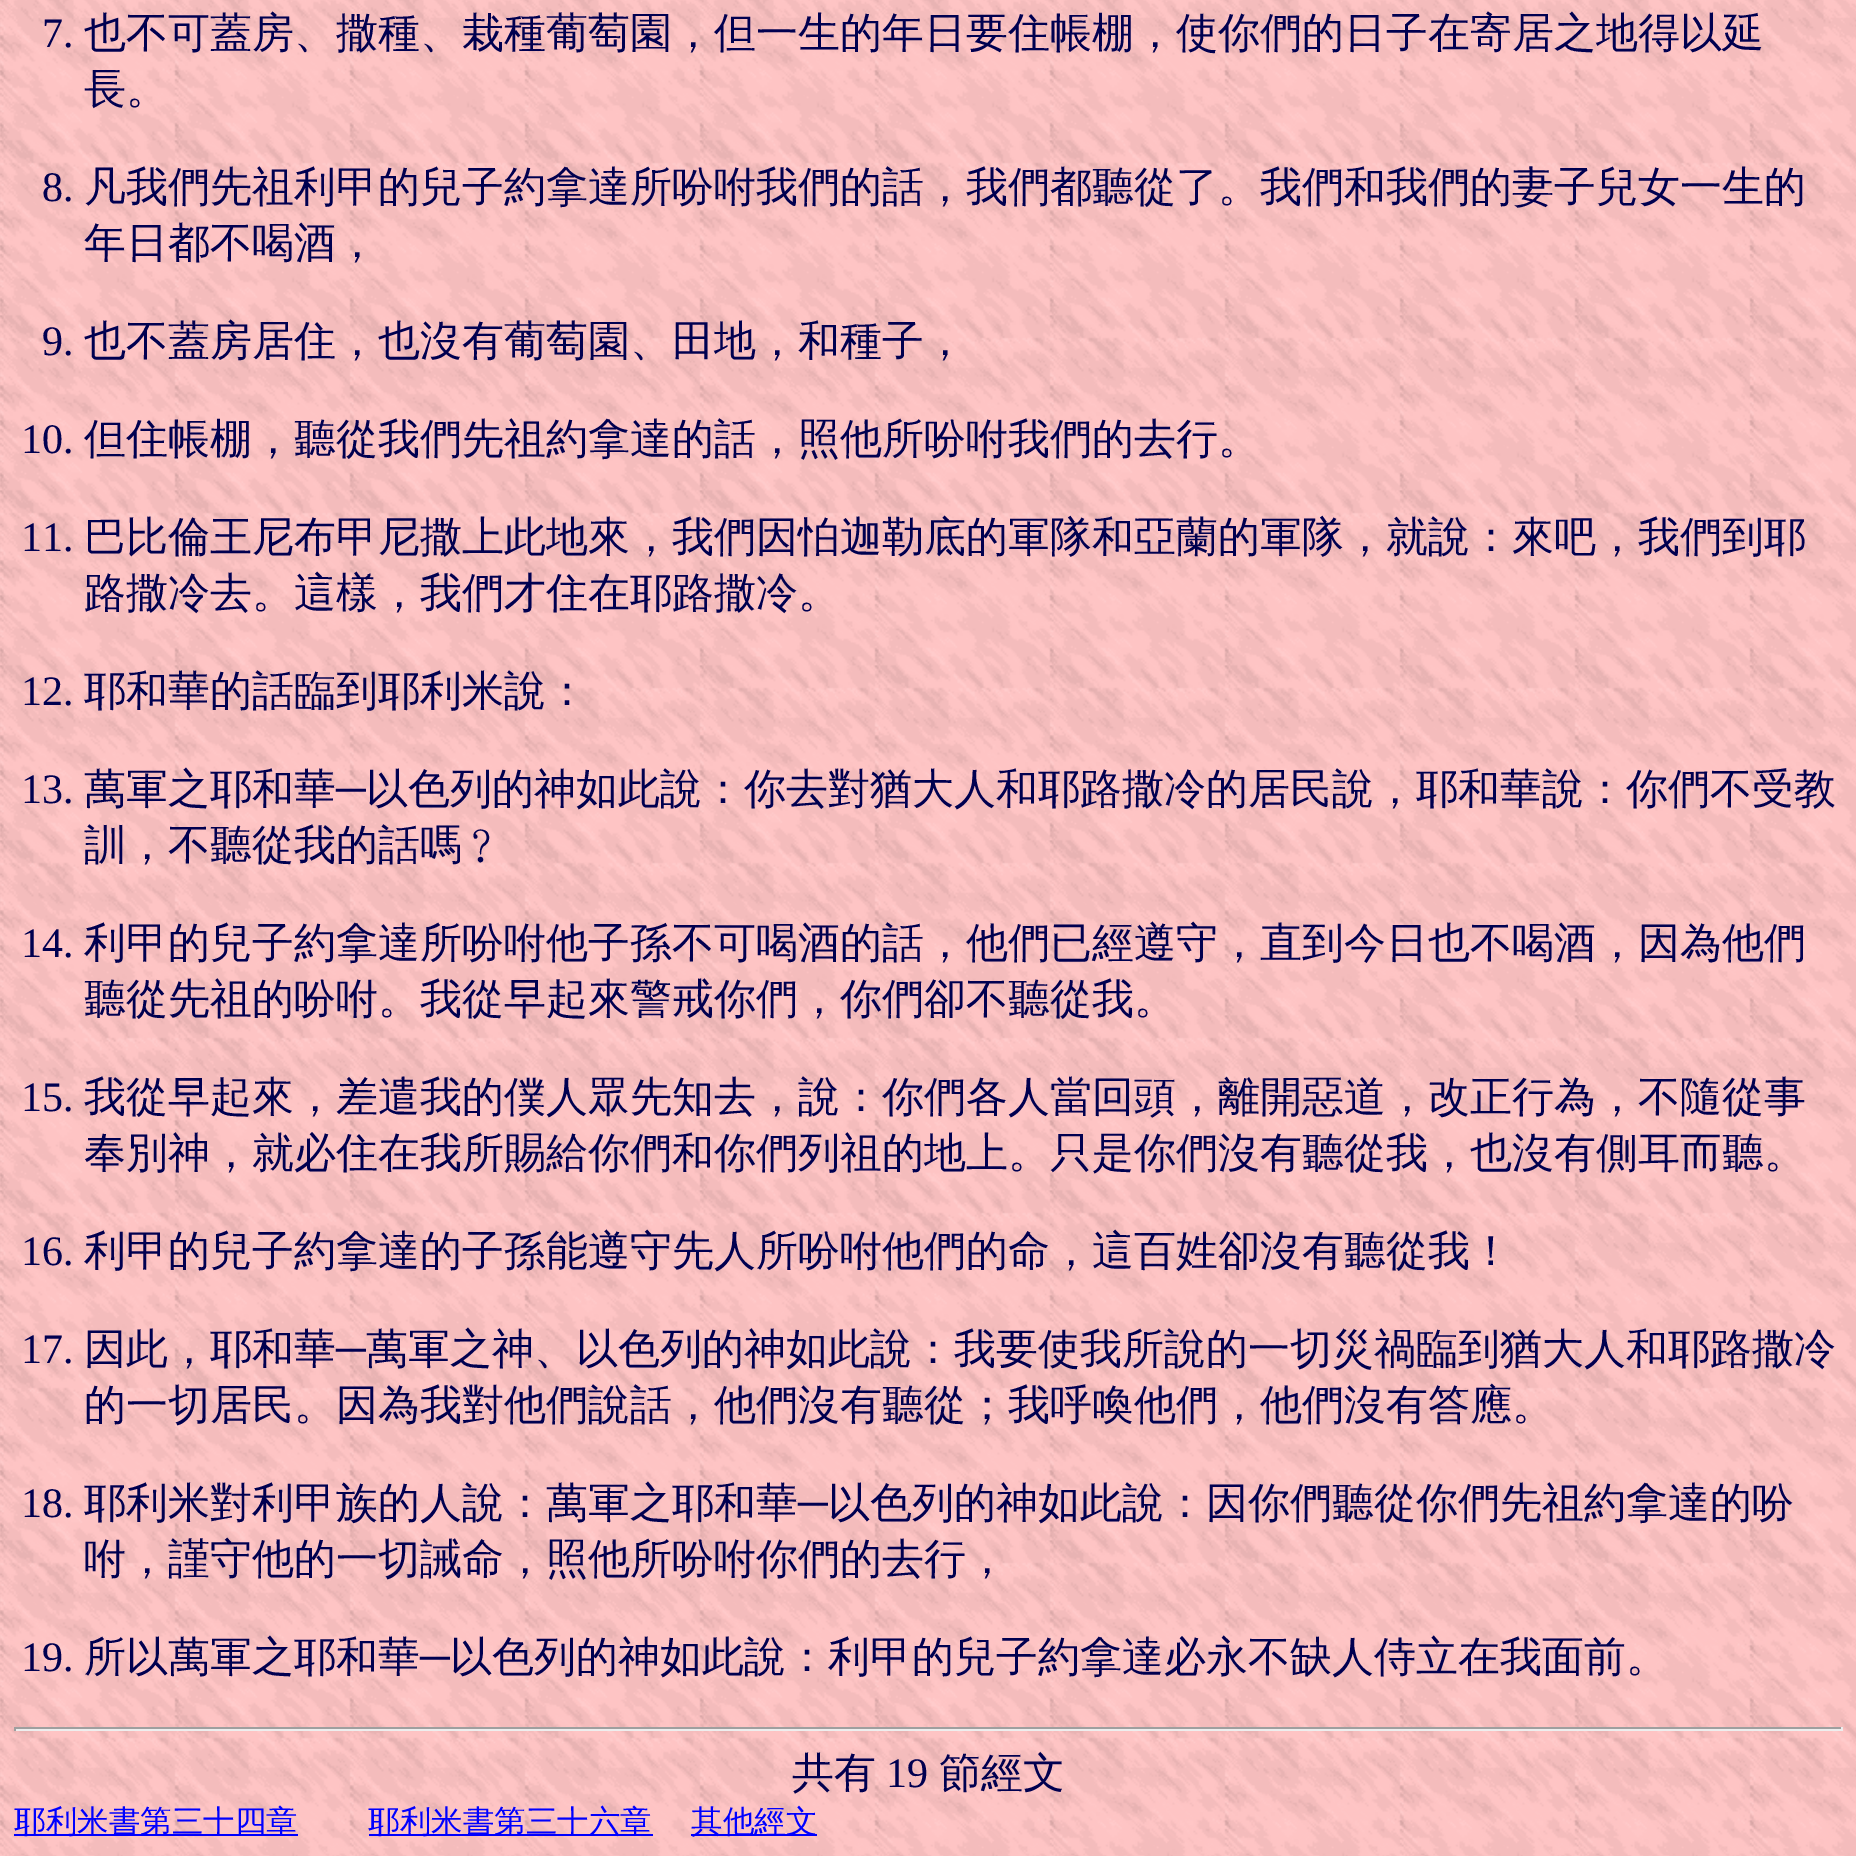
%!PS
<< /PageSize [1856 1856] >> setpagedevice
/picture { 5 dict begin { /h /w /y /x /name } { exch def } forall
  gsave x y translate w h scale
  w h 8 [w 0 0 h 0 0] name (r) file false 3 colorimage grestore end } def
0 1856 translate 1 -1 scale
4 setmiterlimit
1 setgray
0 0 1856 1856 rectfill
(img1.rgb) 0 0 1856 1856 picture
/LiberationSerif-Regular [42 0 0 -42 0 0] selectfont
0 0 0.314 setrgbcolor
42 47 moveto (7.) show
/WenQuanYiZenHei-Medium [42 0 0 -42 0 0] selectfont
84 47 moveto (也不可蓋房、撒種、栽種葡萄園，但一生的年日要住帳棚，使你們的日子在寄居之地得以延) show
84 103 moveto (長。) show
/LiberationSerif-Regular [42 0 0 -42 0 0] selectfont
42 201 moveto (8.) show
/WenQuanYiZenHei-Medium [42 0 0 -42 0 0] selectfont
84 201 moveto (凡我們先祖利甲的兒子約拿達所吩咐我們的話，我們都聽從了。我們和我們的妻子兒女一生的) show
84 257 moveto (年日都不喝酒，) show
/LiberationSerif-Regular [42 0 0 -42 0 0] selectfont
42 355 moveto (9.) show
/WenQuanYiZenHei-Medium [42 0 0 -42 0 0] selectfont
84 355 moveto (也不蓋房居住，也沒有葡萄園、田地，和種子，) show
/LiberationSerif-Regular [42 0 0 -42 0 0] selectfont
21 453 moveto (10.) show
/WenQuanYiZenHei-Medium [42 0 0 -42 0 0] selectfont
84 453 moveto (但住帳棚，聽從我們先祖約拿達的話，照他所吩咐我們的去行。) show
/LiberationSerif-Regular [42 0 0 -42 0 0] selectfont
21 551 moveto (11.) show
/WenQuanYiZenHei-Medium [42 0 0 -42 0 0] selectfont
84 551 moveto (巴比倫王尼布甲尼撒上此地來，我們因怕迦勒底的軍隊和亞蘭的軍隊，就說：來吧，我們到耶) show
84 607 moveto (路撒冷去。這樣，我們才住在耶路撒冷。) show
/LiberationSerif-Regular [42 0 0 -42 0 0] selectfont
21 705 moveto (12.) show
/WenQuanYiZenHei-Medium [42 0 0 -42 0 0] selectfont
84 705 moveto (耶和華的話臨到耶利米說：) show
/LiberationSerif-Regular [42 0 0 -42 0 0] selectfont
21 803 moveto (13.) show
/WenQuanYiZenHei-Medium [42 0 0 -42 0 0] selectfont
84 803 moveto (萬軍之耶和華) show
/LiberationSerif-Regular [42 0 0 -42 0 0] selectfont
336 803 moveto (─) show
/WenQuanYiZenHei-Medium [42 0 0 -42 0 0] selectfont
366 803 moveto (以色列的神如此說：你去對猶大人和耶路撒冷的居民說，耶和華說：你們不受教) show
84 859 moveto (訓，不聽從我的話嗎﹖) show
/LiberationSerif-Regular [42 0 0 -42 0 0] selectfont
21 957 moveto (14.) show
/WenQuanYiZenHei-Medium [42 0 0 -42 0 0] selectfont
84 957 moveto (利甲的兒子約拿達所吩咐他子孫不可喝酒的話，他們已經遵守，直到今日也不喝酒，因為他們) show
84 1013 moveto (聽從先祖的吩咐。我從早起來警戒你們，你們卻不聽從我。) show
/LiberationSerif-Regular [42 0 0 -42 0 0] selectfont
21 1111 moveto (15.) show
/WenQuanYiZenHei-Medium [42 0 0 -42 0 0] selectfont
84 1111 moveto (我從早起來，差遣我的僕人眾先知去，說：你們各人當回頭，離開惡道，改正行為，不隨從事) show
84 1167 moveto (奉別神，就必住在我所賜給你們和你們列祖的地上。只是你們沒有聽從我，也沒有側耳而聽。) show
/LiberationSerif-Regular [42 0 0 -42 0 0] selectfont
21 1265 moveto (16.) show
/WenQuanYiZenHei-Medium [42 0 0 -42 0 0] selectfont
84 1265 moveto (利甲的兒子約拿達的子孫能遵守先人所吩咐他們的命，這百姓卻沒有聽從我！) show
/LiberationSerif-Regular [42 0 0 -42 0 0] selectfont
21 1363 moveto (17.) show
/WenQuanYiZenHei-Medium [42 0 0 -42 0 0] selectfont
84 1363 moveto (因此，耶和華) show
/LiberationSerif-Regular [42 0 0 -42 0 0] selectfont
336 1363 moveto (─) show
/WenQuanYiZenHei-Medium [42 0 0 -42 0 0] selectfont
366 1363 moveto (萬軍之神、以色列的神如此說：我要使我所說的一切災禍臨到猶大人和耶路撒冷) show
84 1419 moveto (的一切居民。因為我對他們說話，他們沒有聽從；我呼喚他們，他們沒有答應。) show
/LiberationSerif-Regular [42 0 0 -42 0 0] selectfont
21 1517 moveto (18.) show
/WenQuanYiZenHei-Medium [42 0 0 -42 0 0] selectfont
84 1517 moveto (耶利米對利甲族的人說：萬軍之耶和華) show
/LiberationSerif-Regular [42 0 0 -42 0 0] selectfont
798 1517 moveto (─) show
/WenQuanYiZenHei-Medium [42 0 0 -42 0 0] selectfont
828 1517 moveto (以色列的神如此說：因你們聽從你們先祖約拿達的吩) show
84 1573 moveto (咐，謹守他的一切誡命，照他所吩咐你們的去行，) show
/LiberationSerif-Regular [42 0 0 -42 0 0] selectfont
21 1671 moveto (19.) show
/WenQuanYiZenHei-Medium [42 0 0 -42 0 0] selectfont
84 1671 moveto (所以萬軍之耶和華) show
/LiberationSerif-Regular [42 0 0 -42 0 0] selectfont
420 1671 moveto (─) show
/WenQuanYiZenHei-Medium [42 0 0 -42 0 0] selectfont
450 1671 moveto (以色列的神如此說：利甲的兒子約拿達必永不缺人侍立在我面前。) show
0.624 setgray
14 1727 1829 2 rectfill
0.933 setgray
1841 1727 2 4 rectfill
14 1729 1829 2 rectfill
0.624 setgray
14 1727 2 4 rectfill
0 0 0.314 setrgbcolor
792 1787 moveto (共有) show
/LiberationSerif-Regular [42 0 0 -42 0 0] selectfont
886 1787 moveto (19) show
/WenQuanYiZenHei-Medium [42 0 0 -42 0 0] selectfont
939 1787 moveto (節經文) show
0 0 1 setrgbcolor
14 1834 284 2 rectfill
/WenQuanYiZenHei-Medium [31.5 0 0 -31.5 0 0] selectfont
14 1832 moveto (耶利米書第三十四章) show
369 1834 284 2 rectfill
368 1832 moveto (耶利米書第三十六章) show
691 1834 126 2 rectfill
691 1832 moveto (其他經文) show
showpage
